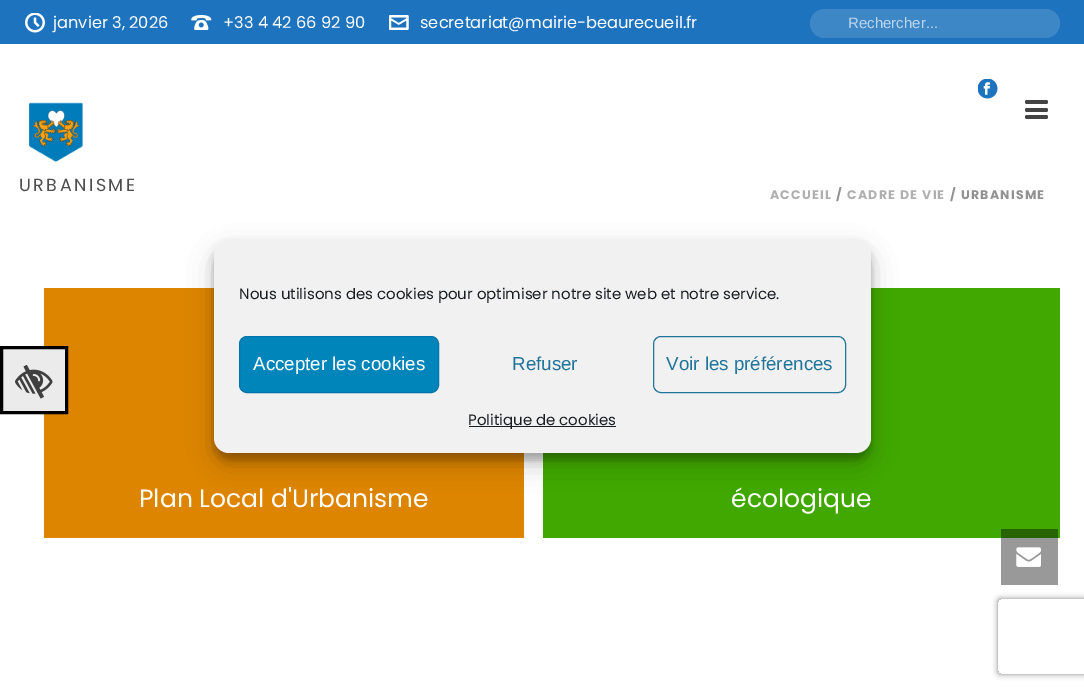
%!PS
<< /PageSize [1084 691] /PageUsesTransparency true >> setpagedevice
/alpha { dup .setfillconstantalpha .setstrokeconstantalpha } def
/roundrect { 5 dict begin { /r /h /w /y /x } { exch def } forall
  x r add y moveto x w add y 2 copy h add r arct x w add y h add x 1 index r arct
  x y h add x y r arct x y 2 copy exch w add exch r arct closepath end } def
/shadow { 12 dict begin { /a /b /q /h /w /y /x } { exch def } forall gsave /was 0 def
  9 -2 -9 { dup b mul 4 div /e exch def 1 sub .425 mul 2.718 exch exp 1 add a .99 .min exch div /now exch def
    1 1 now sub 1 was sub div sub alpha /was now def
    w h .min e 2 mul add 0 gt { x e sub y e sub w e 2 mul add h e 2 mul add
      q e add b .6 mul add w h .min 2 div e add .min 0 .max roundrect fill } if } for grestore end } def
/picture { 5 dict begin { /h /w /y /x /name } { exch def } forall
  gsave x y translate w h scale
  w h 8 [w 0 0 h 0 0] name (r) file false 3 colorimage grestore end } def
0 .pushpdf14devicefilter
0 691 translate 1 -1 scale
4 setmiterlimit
1 setgray
0 0 1084 691 rectfill
0.6 setgray
1001 538 57 47 rectfill
0.118 0.451 0.745 setrgbcolor
0 0 1084 44 rectfill
(img1.rgb) 25 13 20 20 picture
/Poppins-Regular [16.25 0 0 -16.25 0 0] selectfont
1 setgray
53 28 moveto (janvier 3, 2026) show
(img2.rgb) 191 15 21 15 picture
223 28 moveto (+33 4 42 66 92 90) show
(img3.rgb) 389 15 20 15 picture
420 28 moveto (secretariat@mairie-beaurecueil.fr) show
gsave
810 0 250 44 22 roundrect clip newpath
0.243 0.529 0.78 setrgbcolor
810 9 250 29 14.5 roundrect fill
grestore
/LiberationSans-Regular [15 0 0 -15 0 0] selectfont
0.737 0.835 0.925 setrgbcolor
848 28 moveto (Rechercher...) show
(img4.rgb) 978 79 20 20 picture
(img5.rgb) 29 102 54 60 picture
0.267 setgray
1025 100 23 4 2 roundrect fill
1025 108 23 4 2 roundrect fill
1025 115 23 4 2 roundrect fill
/Poppins-Regular [17.5 0 0 -17.5 0 0] selectfont
0.302 setgray
19 191 moveto 2.5 0 (URBANISME) ashow
/Poppins-Bold [12.5 0 0 -12.5 0 0] selectfont
0.686 setgray
770 199 moveto 1.25 0 (ACCUEIL) ashow
0.569 setgray
836 199 moveto 1.25 0 (/) ashow
0.686 setgray
847 199 moveto 1.25 0 (CADRE DE VIE) ashow
0.569 setgray
950 199 moveto 1.25 0 (/ URBANISME) ashow
0.867 0.522 0 setrgbcolor
44 288 480 250 rectfill
/Poppins-Regular [25 0 0 -25 0 0] selectfont
1 setgray
139 507 moveto (Plan Local d'Urbanisme) show
0.251 0.659 0 setrgbcolor
543 288 517 250 rectfill
0.149 0.396 0 setrgbcolor
1001 529 57 9 rectfill
1 setgray
731 507 moveto (écologique) show
0.922 setgray
newpath 1.5 347.5 moveto 66.5 347.5 lineto 66.5 412.5 lineto 1.5 412.5 lineto closepath gsave fill grestore
0 setgray
3 setlinewidth
stroke
(img6.rgb) 15 365 38 34 picture
214 246 657 214 15 4 0.23 shadow
214 251 657 214 15 12.5 0.19 shadow
0.945 setgray
214 239 657 214 15 roundrect fill
/Poppins-Regular [15 0 0 -15 0 0] selectfont
0.098 0.118 0.137 setrgbcolor
239 299 moveto (Nous utilisons des cookies pour optimiser notre site web et notre service.) show
0 0.522 0.729 setrgbcolor
239.5 336.5 199 56 7.5 roundrect gsave fill grestore
0 0.451 0.667 setrgbcolor
1 setlinewidth
stroke
/LiberationSans-Regular [18.75 0 0 -18.75 0 0] selectfont
1 setgray
253 370 moveto (Accepter les cookies) show
0.129 0.459 0.608 setrgbcolor
512 370 moveto (Refuser) show
653.5 336.5 192 56 7.5 roundrect stroke
666 370 moveto (Voir les préférences) show
0.098 0.118 0.137 setrgbcolor
469 426 147 1 rectfill
/Poppins-Regular [15 0 0 -15 0 0] selectfont
468 425 moveto (Politique de cookies) show
(img7.rgb) 1016 547 25 20 picture
gsave
newpath 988 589 moveto 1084 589 lineto 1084 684 lineto 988 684 lineto closepath 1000.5 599 moveto 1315.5 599 lineto 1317 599 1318 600 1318 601.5 curveto 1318 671.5 lineto 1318 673 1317 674 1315.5 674 curveto 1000.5 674 lineto 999 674 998 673 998 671.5 curveto 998 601.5 lineto 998 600 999 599 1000.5 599 curveto closepath eoclip newpath
0.502 setgray
998 599 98 75 2.5 3 1 shadow
grestore
.poppdf14devicefilter showpage
